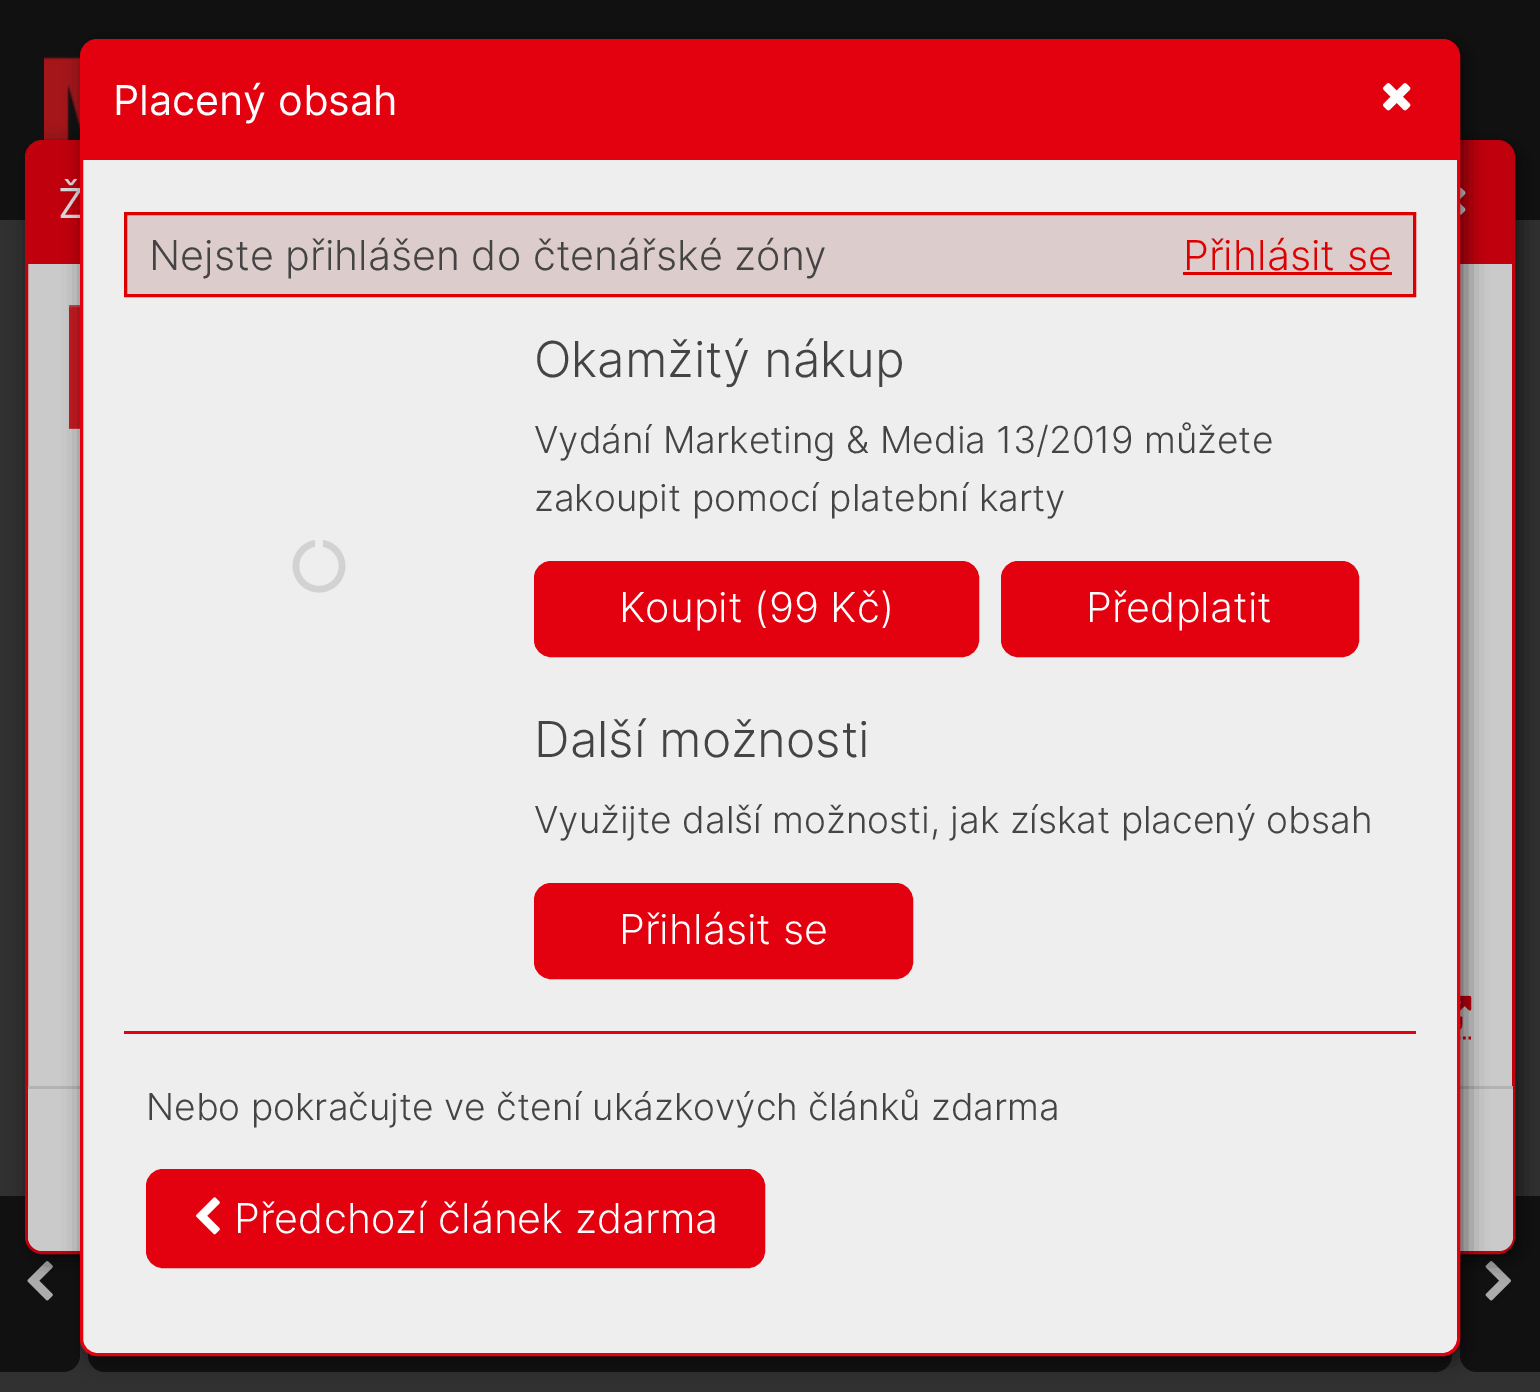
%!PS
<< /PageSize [1540 1392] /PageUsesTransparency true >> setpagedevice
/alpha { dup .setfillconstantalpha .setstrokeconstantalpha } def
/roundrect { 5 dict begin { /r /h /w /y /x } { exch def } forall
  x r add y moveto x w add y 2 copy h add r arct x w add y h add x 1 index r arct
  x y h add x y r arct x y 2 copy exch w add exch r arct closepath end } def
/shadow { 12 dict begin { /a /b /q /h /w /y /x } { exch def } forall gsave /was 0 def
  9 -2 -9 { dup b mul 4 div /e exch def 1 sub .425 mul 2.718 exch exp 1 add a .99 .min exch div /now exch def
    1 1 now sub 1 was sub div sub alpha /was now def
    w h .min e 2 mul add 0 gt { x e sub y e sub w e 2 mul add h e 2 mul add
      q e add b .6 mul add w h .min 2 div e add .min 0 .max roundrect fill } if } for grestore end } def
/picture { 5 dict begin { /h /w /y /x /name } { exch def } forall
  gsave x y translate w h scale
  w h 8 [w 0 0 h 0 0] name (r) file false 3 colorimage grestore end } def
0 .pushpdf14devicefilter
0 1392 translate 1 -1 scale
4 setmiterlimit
0.192 setgray
0 0 1540 1392 rectfill
0.067 setgray
0 0 1540 220 rectfill
(img1.rgb) 44 56 36 84 picture
newpath 0 1196 moveto 63 1196 lineto 72.5 1196 80 1203.5 80 1213 curveto 80 1355 lineto 80 1364.5 72.5 1372 63 1372 curveto 0 1372 lineto closepath fill
(img2.rgb) 27 1260 26 41 picture
88 1196 1364 176 17 roundrect fill
newpath 1477 1196 moveto 1540 1196 lineto 1540 1372 lineto 1477 1372 lineto 1467.5 1372 1460 1364.5 1460 1355 curveto 1460 1213 lineto 1460 1203.5 1467.5 1196 1477 1196 curveto closepath fill
(img3.rgb) 1485 1260 26 41 picture
0 setgray
30 146 1491 1114 17 10.5 0.53 shadow
0.792 setgray
26.5 141.5 1487 1111 15.5 roundrect gsave fill grestore
0.757 0 0.051 setrgbcolor
3 setlinewidth
stroke
newpath 42 143 moveto 1499 143 lineto 1506.5 143 1513 149.5 1513 157 curveto 1513 264 lineto 28 264 lineto 28 157 lineto 28 149.5 34.5 143 42 143 curveto closepath fill
/Inter-Regular [41.25 0 0 -41.25 0 0] selectfont
0.851 setgray
58 218 moveto (Ž) show
(img4.rgb) 1460 187 6 28 picture
(img5.rgb) 69 305 11 124 picture
0.757 0 0.051 setrgbcolor
2.8 setlinewidth
[2.75 2.75] 0 setdash
newpath 1430 1038 moveto 1471 1038 lineto stroke
(img6.rgb) 1460 995 12 35 picture
0.792 setgray
newpath 28 1086 moveto 1513 1086 lineto 1513 1237 lineto 1513 1244.5 1506.5 1251 1499 1251 curveto 42 1251 lineto 34.5 1251 28 1244.5 28 1237 curveto closepath fill
0.702 setgray
28 1086 1485 3 rectfill
0 setgray
85 44 1381 1317 17 10.5 0.53 shadow
0.933 setgray
81.5 40.5 1377 1314 15.5 roundrect gsave fill grestore
0.89 0 0.059 setrgbcolor
3 setlinewidth
[] 0 setdash
stroke
newpath 97 41 moveto 1444 41 lineto 1451.5 41 1458 47.5 1458 55 curveto 1458 160 lineto 83 160 lineto 83 55 lineto 83 47.5 89.5 41 97 41 curveto closepath fill
1 setgray
113 115 moveto (Placený obsah) show
(img7.rgb) 1383 83 28 28 picture
0.867 0.8 0.8 setrgbcolor
newpath 125.5 213.5 moveto 1414.5 213.5 lineto 1414.5 295.5 lineto 125.5 295.5 lineto closepath gsave fill grestore
0.867 0 0 setrgbcolor
stroke
/Inter-Light [41.25 0 0 -41.25 0 0] selectfont
0.267 setgray
149 270 moveto (Nejste přihlášen do čtenářské zóny) show
0.867 0 0 setrgbcolor
1183 270 moveto (Přihlásit se) show
1183 272 209 3 rectfill
(img8.rgb) 292 540 54 53 picture
/Inter-Light [49.5 0 0 -49.5 0 0] selectfont
0.267 setgray
534 377 moveto (Okamžitý nákup) show
/Inter-Light [37.1 0 0 -37.1 0 0] selectfont
534 453 moveto (Vydání Marketing & Media 13/2019 můžete) show
534 511 moveto (zakoupit pomocí platební karty) show
0.89 0 0.059 setrgbcolor
535.5 562.5 442 93 15.5 roundrect gsave fill grestore
stroke
/Inter-Light [41.25 0 0 -41.25 0 0] selectfont
1 setgray
619 622 moveto (Koupit \(99 Kč\)) show
0.89 0 0.059 setrgbcolor
1002.5 562.5 355 93 15.5 roundrect gsave fill grestore
stroke
1 setgray
1086 622 moveto (Předplatit) show
/Inter-Light [49.5 0 0 -49.5 0 0] selectfont
0.267 setgray
534 757 moveto (Další možnosti) show
/Inter-Light [37.1 0 0 -37.1 0 0] selectfont
534 833 moveto (Využijte další možnosti, jak získat placený obsah) show
0.89 0 0.059 setrgbcolor
535.5 884.5 376 93 15.5 roundrect gsave fill grestore
stroke
/Inter-Light [41.25 0 0 -41.25 0 0] selectfont
1 setgray
619 944 moveto (Přihlásit se) show
0.89 0 0.059 setrgbcolor
124 1031 1292 3 rectfill
/Inter-Light [37.1 0 0 -37.1 0 0] selectfont
0.267 setgray
146 1120 moveto (Nebo pokračujte ve čtení ukázkových článků zdarma) show
0.89 0 0.059 setrgbcolor
147.5 1170.5 616 96 15.5 roundrect gsave fill grestore
stroke
(img9.rgb) 196 1197 24 38 picture
/Inter-Light [41.25 0 0 -41.25 0 0] selectfont
1 setgray
234 1233 moveto (Předchozí článek zdarma) show
.poppdf14devicefilter showpage
